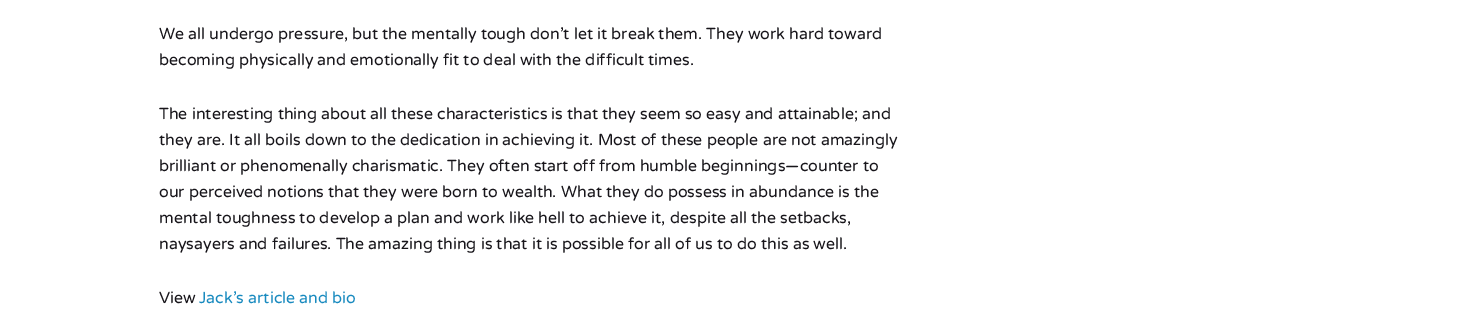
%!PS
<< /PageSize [1457 332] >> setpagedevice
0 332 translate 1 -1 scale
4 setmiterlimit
1 setgray
0 0 1457 332 rectfill
/VarelaRound-Regular [16 0 0 -16 0 0] selectfont
0.09 0.082 0.102 setrgbcolor
159 39 moveto (We all undergo pressure, but the mentally tough don’t let it break them. They work hard toward) show
159 65 moveto (becoming physically and emotionally fit to deal with the difficult times.) show
159 119 moveto (The interesting thing about all these characteristics is that they seem so easy and attainable; and) show
159 145 moveto (they are. It all boils down to the dedication in achieving it. Most of these people are not amazingly) show
159 171 moveto (brilliant or phenomenally charismatic. They often start off from humble beginnings—counter to) show
159 197 moveto (our perceived notions that they were born to wealth. What they do possess in abundance is the) show
159 223 moveto (mental toughness to develop a plan and work like hell to achieve it, despite all the setbacks,) show
159 249 moveto (naysayers and failures. The amazing thing is that it is possible for all of us to do this as well.) show
159 303 moveto (View) show
0.094 0.541 0.749 setrgbcolor
199 303 moveto (Jack’s article and bio) show
showpage
